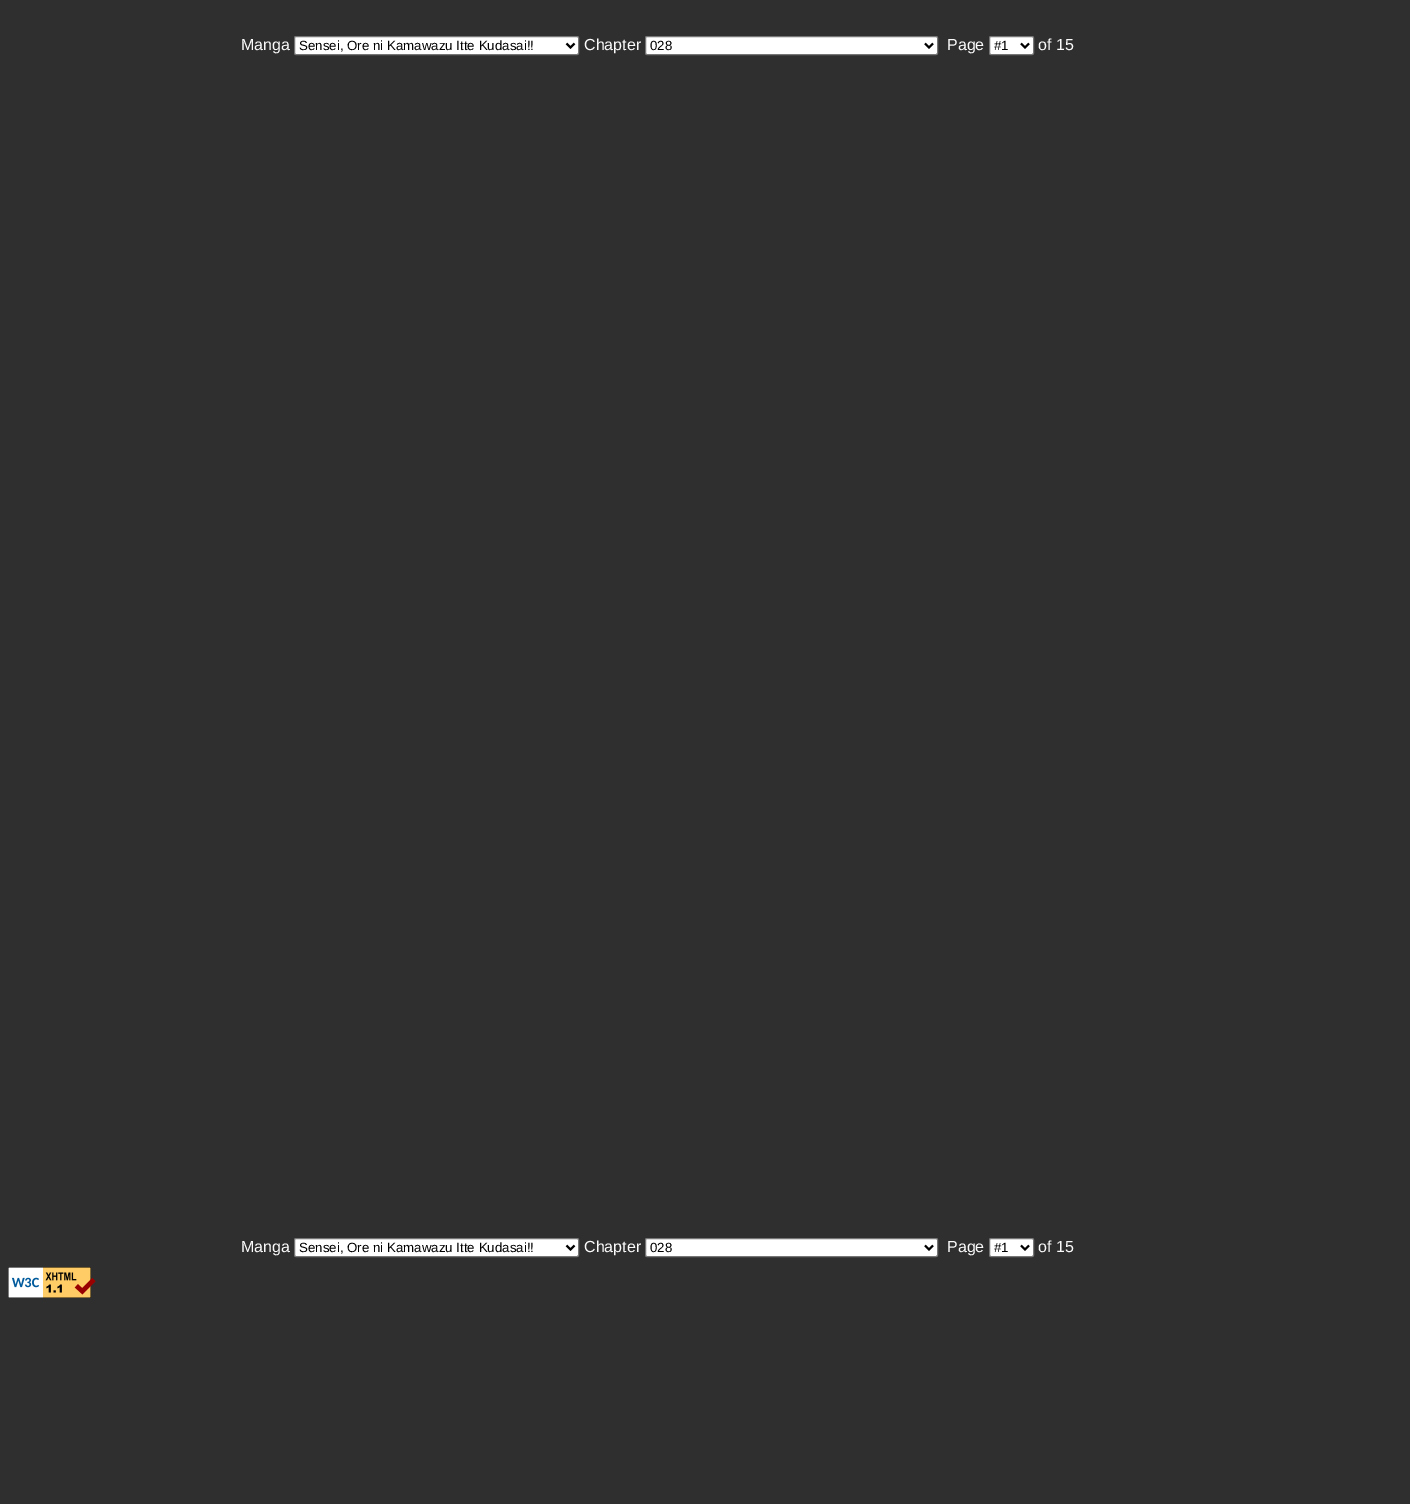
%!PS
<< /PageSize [1410 1504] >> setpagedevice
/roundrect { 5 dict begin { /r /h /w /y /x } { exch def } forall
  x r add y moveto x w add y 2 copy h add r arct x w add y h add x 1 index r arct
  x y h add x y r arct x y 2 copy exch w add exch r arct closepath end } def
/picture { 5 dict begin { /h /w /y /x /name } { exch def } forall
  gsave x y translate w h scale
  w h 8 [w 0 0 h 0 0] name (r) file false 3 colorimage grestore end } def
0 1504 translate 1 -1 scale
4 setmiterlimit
0.188 0.184 0.184 setrgbcolor
0 0 1410 1504 rectfill
/LiberationSans-Regular [16 0 0 -16 0 0] selectfont
0.98 setgray
241 50 moveto (Manga) show
1 setgray
294.5 36.5 284 18 1.5 roundrect gsave fill grestore
0.463 setgray
stroke
0 setgray
2 setlinewidth
newpath 566.5 43.5 moveto 570.5 47.5 lineto 574.5 43.5 lineto stroke
/LiberationSans-Regular [13.3 0 0 -13.3 0 0] selectfont
299 50 moveto (Sensei, Ore ni Kamawazu Itte Kudasai!!) show
/LiberationSans-Regular [16 0 0 -16 0 0] selectfont
0.98 setgray
584 50 moveto (Chapter) show
1 setgray
645.5 36.5 292 18 1.5 roundrect gsave fill grestore
0.463 setgray
1 setlinewidth
stroke
0 setgray
2 setlinewidth
newpath 925 43.5 moveto 929 47.5 lineto 933 43.5 lineto stroke
/LiberationSans-Regular [13.3 0 0 -13.3 0 0] selectfont
650 50 moveto (028) show
/LiberationSans-Regular [16 0 0 -16 0 0] selectfont
0.98 setgray
947 50 moveto (Page) show
1 setgray
989.5 36.5 44 18 1.5 roundrect gsave fill grestore
0.463 setgray
1 setlinewidth
stroke
0 setgray
2 setlinewidth
newpath 1021 43.5 moveto 1025 47.5 lineto 1029 43.5 lineto stroke
/LiberationSans-Regular [13.3 0 0 -13.3 0 0] selectfont
994 50 moveto (#1) show
/LiberationSans-Regular [16 0 0 -16 0 0] selectfont
0.98 setgray
1038 50 moveto (of 15) show
241 1252 moveto (Manga) show
1 setgray
294.5 1238.5 284 18 1.5 roundrect gsave fill grestore
0.463 setgray
1 setlinewidth
stroke
0 setgray
2 setlinewidth
newpath 566.5 1245.5 moveto 570.5 1249.5 lineto 574.5 1245.5 lineto stroke
/LiberationSans-Regular [13.3 0 0 -13.3 0 0] selectfont
299 1252 moveto (Sensei, Ore ni Kamawazu Itte Kudasai!!) show
/LiberationSans-Regular [16 0 0 -16 0 0] selectfont
0.98 setgray
584 1252 moveto (Chapter) show
1 setgray
645.5 1238.5 292 18 1.5 roundrect gsave fill grestore
0.463 setgray
1 setlinewidth
stroke
0 setgray
2 setlinewidth
newpath 925 1245.5 moveto 929 1249.5 lineto 933 1245.5 lineto stroke
/LiberationSans-Regular [13.3 0 0 -13.3 0 0] selectfont
650 1252 moveto (028) show
/LiberationSans-Regular [16 0 0 -16 0 0] selectfont
0.98 setgray
947 1252 moveto (Page) show
1 setgray
989.5 1238.5 44 18 1.5 roundrect gsave fill grestore
0.463 setgray
1 setlinewidth
stroke
0 setgray
2 setlinewidth
newpath 1021 1245.5 moveto 1025 1249.5 lineto 1029 1245.5 lineto stroke
/LiberationSans-Regular [13.3 0 0 -13.3 0 0] selectfont
994 1252 moveto (#1) show
/LiberationSans-Regular [16 0 0 -16 0 0] selectfont
0.98 setgray
1038 1252 moveto (of 15) show
(img1.rgb) 8 1267 88 31 picture
showpage
